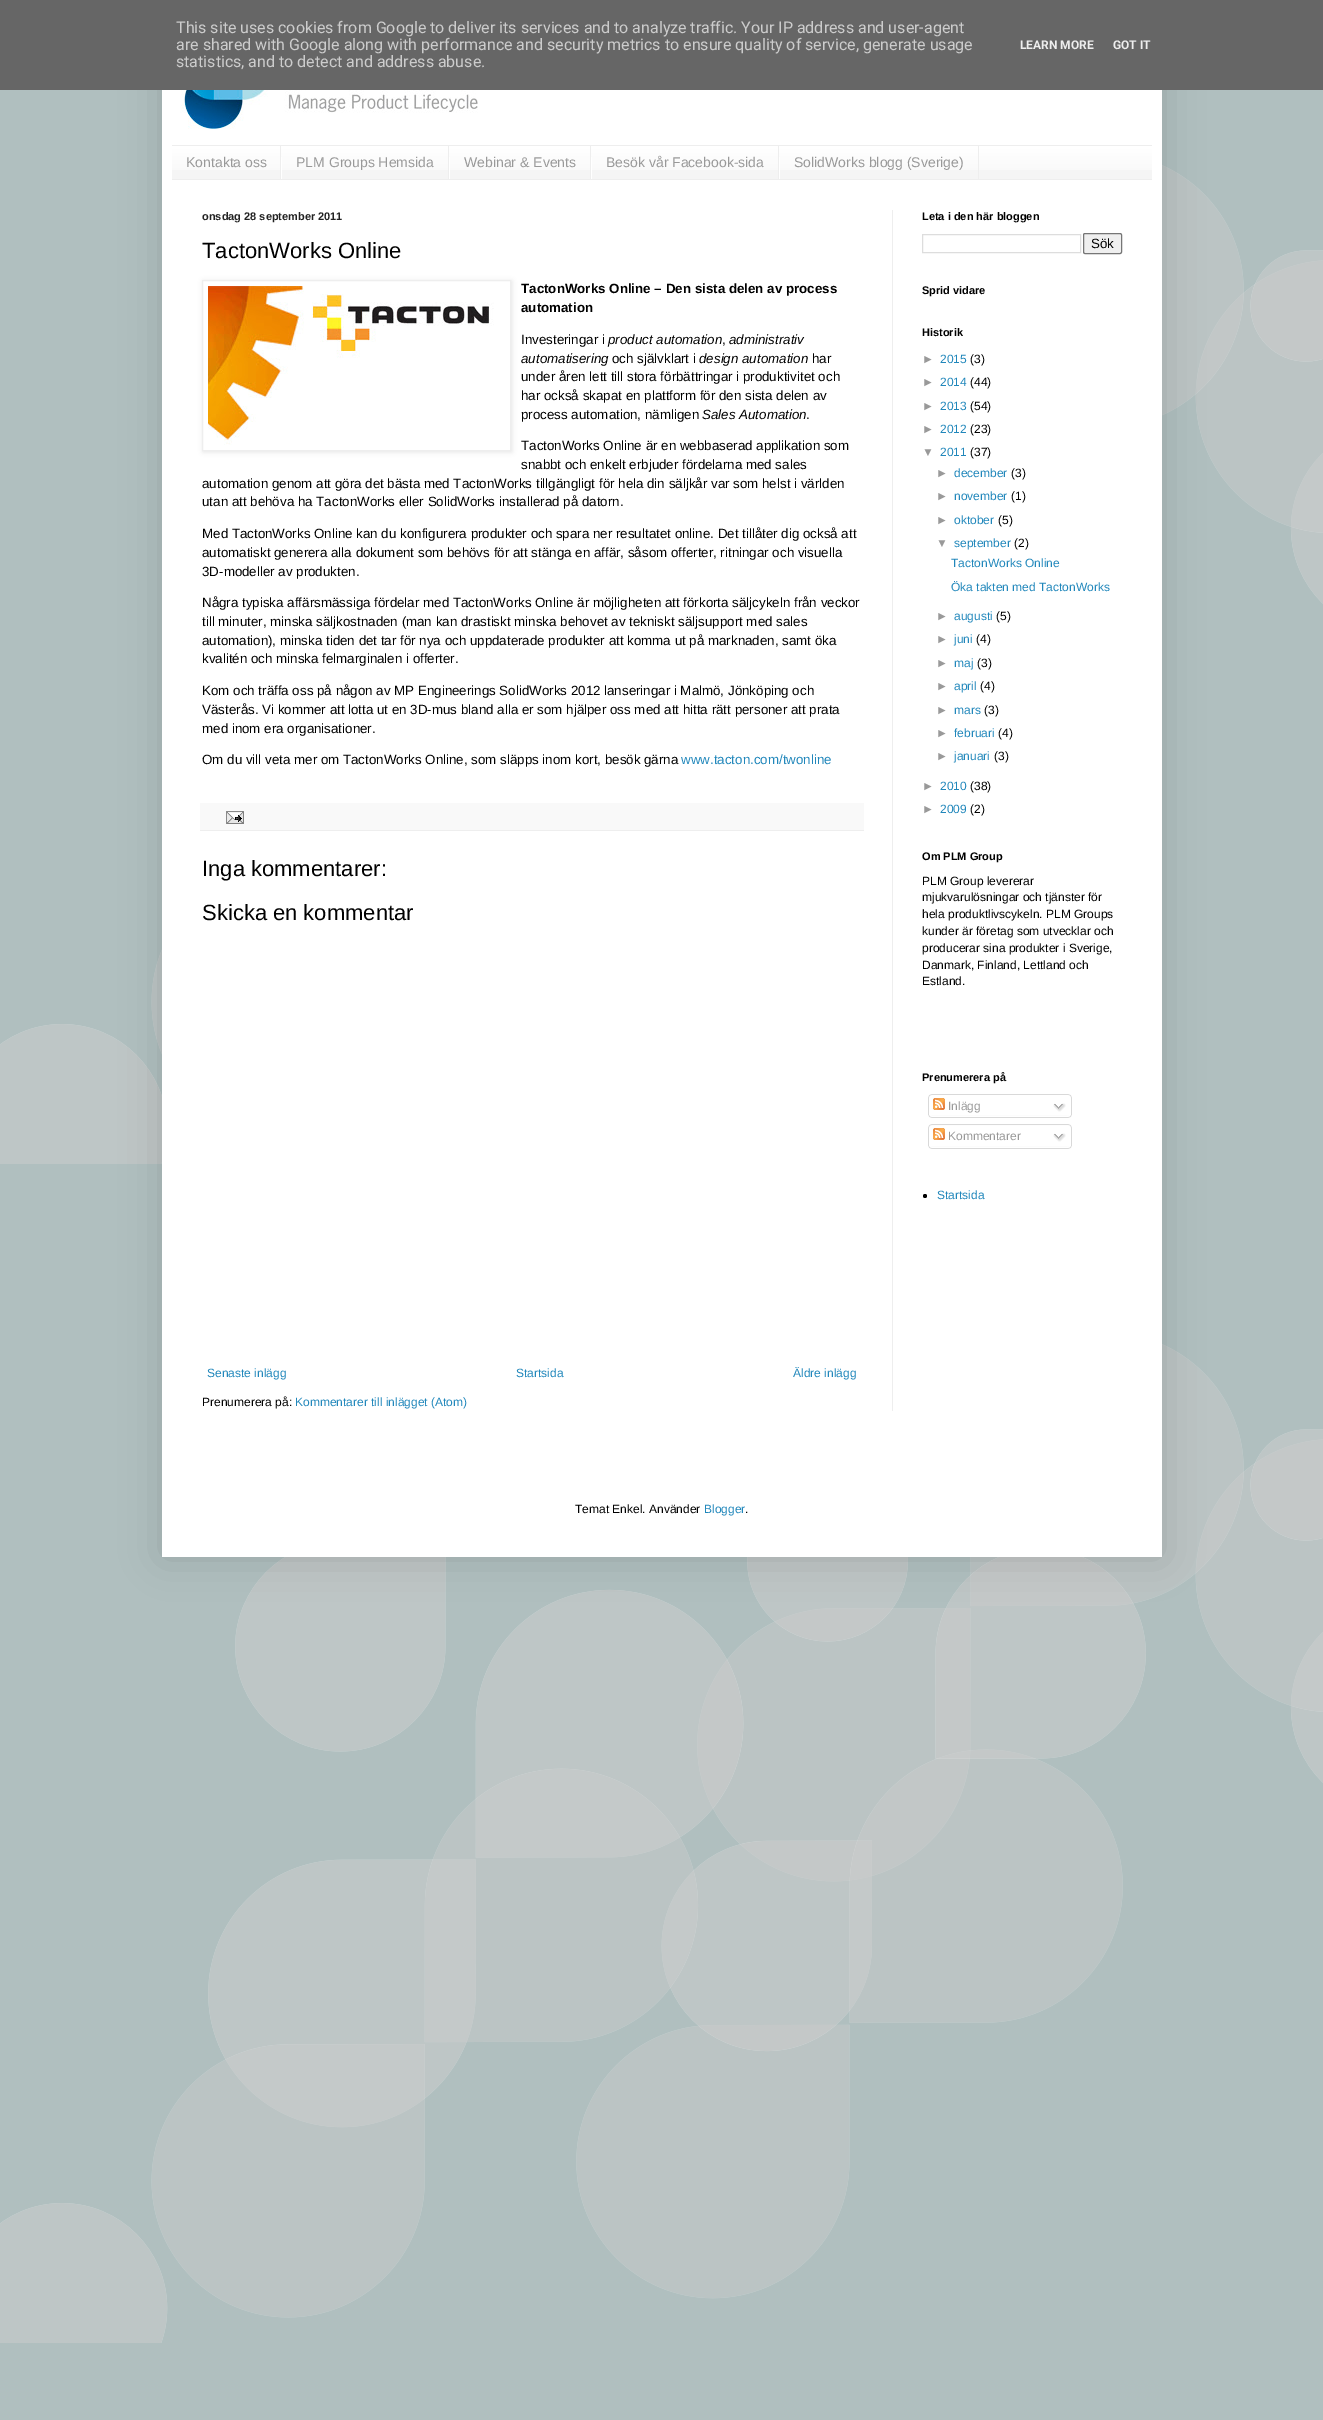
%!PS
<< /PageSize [1323 2420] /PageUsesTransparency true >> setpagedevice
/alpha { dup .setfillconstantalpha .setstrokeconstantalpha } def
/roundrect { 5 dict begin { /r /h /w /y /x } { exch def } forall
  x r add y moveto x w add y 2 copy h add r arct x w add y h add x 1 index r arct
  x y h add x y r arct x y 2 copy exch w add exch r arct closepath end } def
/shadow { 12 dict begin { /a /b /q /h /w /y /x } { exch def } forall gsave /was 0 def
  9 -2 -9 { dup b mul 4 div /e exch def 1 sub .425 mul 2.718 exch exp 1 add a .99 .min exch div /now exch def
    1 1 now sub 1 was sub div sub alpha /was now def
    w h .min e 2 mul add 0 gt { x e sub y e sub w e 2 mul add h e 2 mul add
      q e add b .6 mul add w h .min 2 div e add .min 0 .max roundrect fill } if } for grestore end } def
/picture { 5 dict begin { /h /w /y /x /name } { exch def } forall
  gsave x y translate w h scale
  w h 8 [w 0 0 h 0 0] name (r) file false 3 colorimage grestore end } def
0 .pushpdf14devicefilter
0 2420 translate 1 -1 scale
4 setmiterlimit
1 setgray
0 0 1323 2420 rectfill
(img1.rgb) 0 90 1323 2330 picture
0 setgray
162 15 1000 1542 0 20 0.15 shadow
0.4 setgray
0 0 1323 90 rectfill
/Roboto-Regular [16 0 0 -16 0 0] selectfont
0.8 setgray
176 33 moveto (This site uses cookies from Google to deliver its services and to analyze traffic. Your IP address and user-agent) show
176 50 moveto (are shared with Google along with performance and security metrics to ensure quality of service, generate usage) show
176 67 moveto (statistics, and to detect and address abuse.) show
/Roboto-Bold [12 0 0 -12 0 0] selectfont
0.933 setgray
1020 49 moveto (LEARN MORE) show
1113 49 moveto (GOT IT) show
1 setgray
162 90 1000 1467 rectfill
(img2.rgb) 180 90 298 39 picture
0.961 setgray
172 147 980 32 rectfill
(img3.rgb) 172 146 980 24 picture
0.933 setgray
172 145 980 1 rectfill
172 179 980 1 rectfill
280 146 1 33 rectfill
/LiberationSans-Regular [14 0 0 -14 0 0] selectfont
0.6 setgray
186 167 moveto (Kontakta oss) show
0.933 setgray
448 146 1 33 rectfill
1 setgray
281 157 1 22 rectfill
0.6 setgray
296 167 moveto (PLM Groups Hemsida) show
0.933 setgray
590 146 1 33 rectfill
1 setgray
449 157 1 22 rectfill
0.6 setgray
464 167 moveto (Webinar & Events) show
0.933 setgray
778 146 1 33 rectfill
1 setgray
591 157 1 22 rectfill
0.6 setgray
606 167 moveto (Besök vår Facebook-sida) show
0.933 setgray
978 146 1 33 rectfill
1 setgray
779 157 1 22 rectfill
0.6 setgray
794 167 moveto (SolidWorks blogg \(Sverige\)) show
0.933 setgray
892 210 1 1201 rectfill
/LiberationSans-Bold [11 0 0 -11 0 0] selectfont
0.133 setgray
202 220 moveto (onsdag 28 september 2011) show
/LiberationSans-Regular [22 0 0 -22 0 0] selectfont
0 setgray
202 258 moveto (TactonWorks Online) show
gsave
newpath 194 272 moveto 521 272 lineto 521 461 lineto 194 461 lineto closepath 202 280 moveto 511 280 lineto 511 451 lineto 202 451 lineto closepath eoclip newpath
203 281 309 171 0 2.5 0.1 shadow
grestore
0.933 setgray
202.5 280.5 308 170 rectstroke
(img4.rgb) 208 286 286 159 picture
/LiberationSans-Bold [13.35 0 0 -13.35 0 0] selectfont
0 setgray
521 293 moveto (TactonWorks Online – Den sista delen av process) show
521 312 moveto (automation) show
/LiberationSans-Regular [13.35 0 0 -13.35 0 0] selectfont
521 344 moveto (Investeringar i) show
/LiberationSans-Italic [13.35 0 0 -13.35 0 0] selectfont
608 344 moveto (product automation) show
/LiberationSans-Regular [13.35 0 0 -13.35 0 0] selectfont
722 344 moveto (,) show
/LiberationSans-Italic [13.35 0 0 -13.35 0 0] selectfont
729 344 moveto (administrativ) show
521 363 moveto (automatisering) show
/LiberationSans-Regular [13.35 0 0 -13.35 0 0] selectfont
612 363 moveto (och självklart i) show
/LiberationSans-Italic [13.35 0 0 -13.35 0 0] selectfont
699 363 moveto (design automation) show
/LiberationSans-Regular [13.35 0 0 -13.35 0 0] selectfont
812 363 moveto (har) show
521 381 moveto (under åren lett till stora förbättringar i produktivitet och) show
521 400 moveto (har också skapat en plattform för den sista delen av) show
521 419 moveto (process automation, nämligen) show
/LiberationSans-Italic [13.35 0 0 -13.35 0 0] selectfont
702 419 moveto (Sales Automation) show
/LiberationSans-Regular [13.35 0 0 -13.35 0 0] selectfont
806 419 moveto (.) show
521 450 moveto (TactonWorks Online är en webbaserad applikation som) show
521 469 moveto (snabbt och enkelt erbjuder fördelarna med sales) show
202 488 moveto (automation genom att göra det bästa med TactonWorks tillgängligt för hela din säljkår var som helst i världen) show
202 506 moveto (utan att behöva ha TactonWorks eller SolidWorks installerad på datorn.) show
202 538 moveto (Med TactonWorks Online kan du konfigurera produkter och spara ner resultatet online. Det tillåter dig också att) show
202 557 moveto (automatiskt generera alla dokument som behövs för att stänga en affär, såsom offerter, ritningar och visuella) show
202 576 moveto (3D-modeller av produkten.) show
202 607 moveto (Några typiska affärsmässiga fördelar med TactonWorks Online är möjligheten att förkorta säljcykeln från veckor) show
202 626 moveto (till minuter, minska säljkostnaden \(man kan drastiskt minska behovet av tekniskt säljsupport med sales) show
202 645 moveto (automation\), minska tiden det tar för nya och uppdaterade produkter att komma ut på marknaden, samt öka) show
202 663 moveto (kvalitén och minska felmarginalen i offerter.) show
202 695 moveto (Kom och träffa oss på någon av MP Engineerings SolidWorks 2012 lanseringar i Malmö, Jönköping och) show
202 714 moveto (Västerås. Vi kommer att lotta ut en 3D-mus bland alla er som hjälper oss med att hitta rätt personer att prata) show
202 733 moveto (med inom era organisationer.) show
202 764 moveto (Om du vill veta mer om TactonWorks Online, som släpps inom kort, besök gärna) show
0.129 0.529 0.733 setrgbcolor
681 764 moveto (www.tacton.com/twonline) show
0.976 setgray
200 803 664 27 rectfill
0.933 setgray
200 830 664 1 rectfill
(img5.rgb) 226 811 18 13 picture
/LiberationSans-Regular [22 0 0 -22 0 0] selectfont
0 setgray
202 876 moveto (Inga kommentarer:) show
202 920 moveto (Skicka en kommentar) show
/LiberationSans-Regular [12 0 0 -12 0 0] selectfont
0.129 0.529 0.733 setrgbcolor
207 1377 moveto (Senaste inlägg) show
516 1377 moveto (Startsida) show
793 1377 moveto (Äldre inlägg) show
0 setgray
202 1406 moveto (Prenumerera på:) show
0.129 0.529 0.733 setrgbcolor
295 1406 moveto (Kommentarer till inlägget \(Atom\)) show
/LiberationSans-Bold [11 0 0 -11 0 0] selectfont
0 setgray
922 220 moveto (Leta i den här bloggen) show
0.867 setgray
922.5 234.5 158 18 rectstroke
0.937 setgray
1083.5 233.5 38 20 1.5 roundrect gsave fill grestore
0.463 setgray
stroke
/LiberationSans-Regular [13.35 0 0 -13.35 0 0] selectfont
0 setgray
1091 248 moveto (Sök) show
/LiberationSans-Bold [11 0 0 -11 0 0] selectfont
922 294 moveto (Sprid vidare) show
922 336 moveto (Historik) show
/LiberationSans-Regular [12 0 0 -12 0 0] selectfont
0.6 setgray
922 363 moveto (►) show
0.129 0.529 0.733 setrgbcolor
940 363 moveto (2015) show
0 setgray
970 363 moveto (\(3\)) show
0.6 setgray
922 386 moveto (►) show
0.129 0.529 0.733 setrgbcolor
940 386 moveto (2014) show
0 setgray
970 386 moveto (\(44\)) show
0.6 setgray
922 410 moveto (►) show
0.129 0.529 0.733 setrgbcolor
940 410 moveto (2013) show
0 setgray
970 410 moveto (\(54\)) show
0.6 setgray
922 433 moveto (►) show
0.129 0.529 0.733 setrgbcolor
940 433 moveto (2012) show
0 setgray
970 433 moveto (\(23\)) show
0.6 setgray
922 456 moveto (▼) show
0.129 0.529 0.733 setrgbcolor
940 456 moveto (2011) show
0 setgray
970 456 moveto (\(37\)) show
0.6 setgray
936 477 moveto (►) show
0.129 0.529 0.733 setrgbcolor
954 477 moveto (december) show
0 setgray
1011 477 moveto (\(3\)) show
0.6 setgray
936 500 moveto (►) show
0.129 0.529 0.733 setrgbcolor
954 500 moveto (november) show
0 setgray
1011 500 moveto (\(1\)) show
0.6 setgray
936 524 moveto (►) show
0.129 0.529 0.733 setrgbcolor
954 524 moveto (oktober) show
0 setgray
998 524 moveto (\(5\)) show
0.6 setgray
936 547 moveto (▼) show
0.129 0.529 0.733 setrgbcolor
954 547 moveto (september) show
0 setgray
1014 547 moveto (\(2\)) show
0.129 0.529 0.733 setrgbcolor
951 567 moveto (TactonWorks Online) show
951 591 moveto (Öka takten med TactonWorks) show
0.6 setgray
936 620 moveto (►) show
0.129 0.529 0.733 setrgbcolor
954 620 moveto (augusti) show
0 setgray
996 620 moveto (\(5\)) show
0.6 setgray
936 643 moveto (►) show
0.129 0.529 0.733 setrgbcolor
954 643 moveto (juni) show
0 setgray
976 643 moveto (\(4\)) show
0.6 setgray
936 667 moveto (►) show
0.129 0.529 0.733 setrgbcolor
954 667 moveto (maj) show
0 setgray
977 667 moveto (\(3\)) show
0.6 setgray
936 690 moveto (►) show
0.129 0.529 0.733 setrgbcolor
954 690 moveto (april) show
0 setgray
980 690 moveto (\(4\)) show
0.6 setgray
936 714 moveto (►) show
0.129 0.529 0.733 setrgbcolor
954 714 moveto (mars) show
0 setgray
984 714 moveto (\(3\)) show
0.6 setgray
936 737 moveto (►) show
0.129 0.529 0.733 setrgbcolor
954 737 moveto (februari) show
0 setgray
998 737 moveto (\(4\)) show
0.6 setgray
936 760 moveto (►) show
0.129 0.529 0.733 setrgbcolor
954 760 moveto (januari) show
0 setgray
994 760 moveto (\(3\)) show
0.6 setgray
922 790 moveto (►) show
0.129 0.529 0.733 setrgbcolor
940 790 moveto (2010) show
0 setgray
970 790 moveto (\(38\)) show
0.6 setgray
922 813 moveto (►) show
0.129 0.529 0.733 setrgbcolor
940 813 moveto (2009) show
0 setgray
970 813 moveto (\(2\)) show
/LiberationSans-Bold [11 0 0 -11 0 0] selectfont
922 860 moveto (Om PLM Group) show
/LiberationSans-Regular [12 0 0 -12 0 0] selectfont
922 885 moveto (PLM Group levererar) show
922 901 moveto (mjukvarulösningar och tjänster för) show
922 918 moveto (hela produktlivscykeln. PLM Groups) show
922 935 moveto (kunder är företag som utvecklar och) show
922 952 moveto (producerar sina produkter i Sverige,) show
922 969 moveto (Danmark, Finland, Lettland och) show
922 985 moveto (Estland.) show
/LiberationSans-Bold [11 0 0 -11 0 0] selectfont
922 1081 moveto (Prenumerera på) show
(img6.rgb) 928 1094 144 21 picture
(img7.rgb) 933 1098 12 12 picture
/LiberationSans-Regular [12 0 0 -12 0 0] selectfont
0.6 setgray
948 1110 moveto (Inlägg) show
(img8.rgb) 1053 1103 13 9 picture
(img9.rgb) 928 1115 144 3 picture
(img10.rgb) 928 1124 144 22 picture
(img7.rgb) 933 1128 12 12 picture
948 1140 moveto (Kommentarer) show
(img8.rgb) 1053 1133 13 9 picture
(img9.rgb) 928 1146 144 3 picture
0 setgray
newpath 925 1196 2 0 360 arc closepath fill
0.129 0.529 0.733 setrgbcolor
937 1199 moveto (Startsida) show
0 setgray
575 1513 moveto (Temat Enkel. Använder) show
0.129 0.529 0.733 setrgbcolor
704 1513 moveto (Blogger) show
0 setgray
745 1513 moveto (.) show
.poppdf14devicefilter showpage
